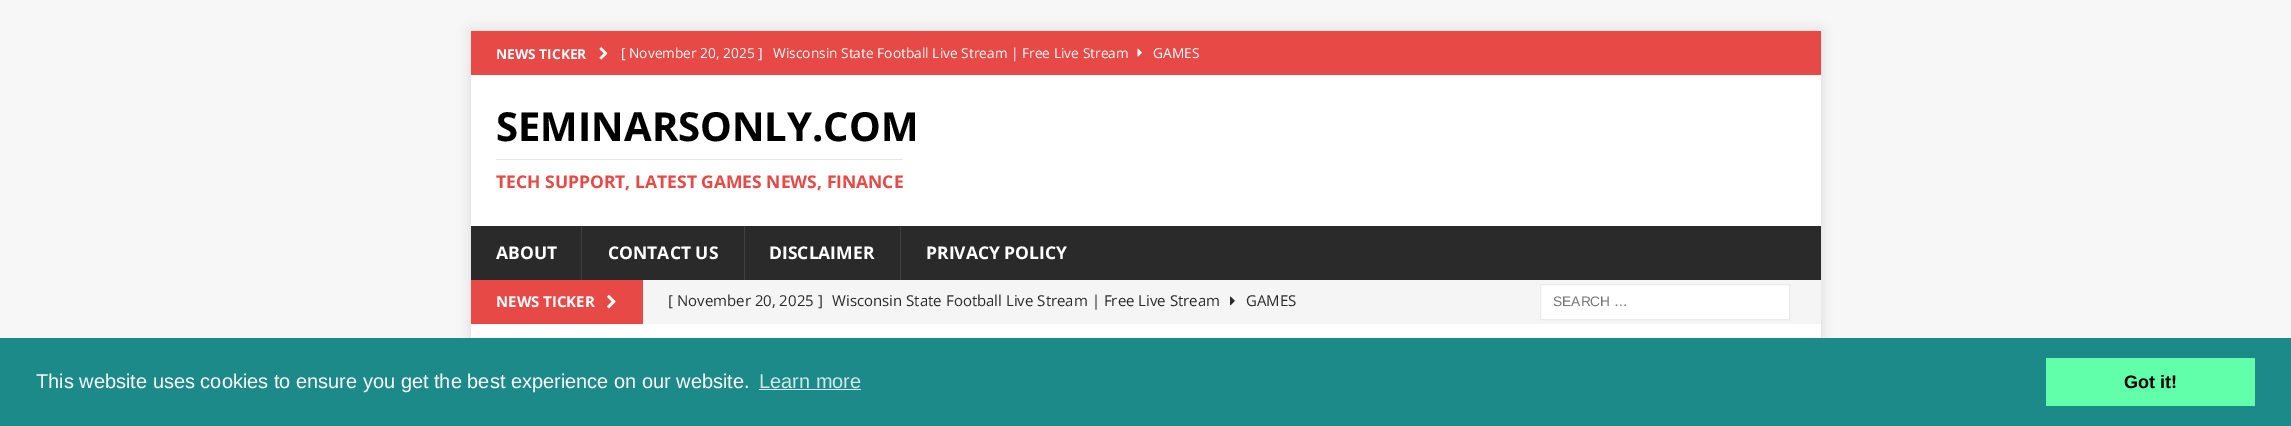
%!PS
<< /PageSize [2291 426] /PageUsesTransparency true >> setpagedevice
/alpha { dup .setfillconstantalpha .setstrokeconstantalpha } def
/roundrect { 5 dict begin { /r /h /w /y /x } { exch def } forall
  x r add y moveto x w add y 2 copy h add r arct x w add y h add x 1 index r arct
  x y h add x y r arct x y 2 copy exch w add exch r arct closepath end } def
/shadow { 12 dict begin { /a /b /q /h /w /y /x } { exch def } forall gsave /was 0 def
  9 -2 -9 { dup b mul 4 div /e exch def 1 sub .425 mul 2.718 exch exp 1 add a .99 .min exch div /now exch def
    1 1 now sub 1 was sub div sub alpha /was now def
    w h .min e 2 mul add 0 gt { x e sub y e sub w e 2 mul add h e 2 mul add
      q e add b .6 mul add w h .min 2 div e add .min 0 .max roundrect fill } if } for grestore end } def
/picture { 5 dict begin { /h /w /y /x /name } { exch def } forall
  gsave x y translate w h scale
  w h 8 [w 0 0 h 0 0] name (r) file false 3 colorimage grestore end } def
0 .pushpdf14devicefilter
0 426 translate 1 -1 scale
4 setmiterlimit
0.969 setgray
0 0 2291 426 rectfill
0.196 setgray
471 31 1350 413 0 6 0.17 shadow
0.902 0.286 0.275 setrgbcolor
471 31 1350 44 rectfill
/OpenSans-Bold [13.75 0 0 -13.75 0 0] selectfont
1 setgray
496 59 moveto (NEWS TICKER) show
(img1.rgb) 599 47 9 13 picture
/OpenSans-Regular [13.75 0 0 -13.75 0 0] selectfont
621 58 moveto ([ November 20, 2025 ]) show
773 58 moveto (Wisconsin State Football Live Stream | Free Live Stream) show
(img2.rgb) 1137 48 5 9 picture
1153 58 moveto (GAMES) show
471 75 1350 151 rectfill
/OpenSans-Bold [40 0 0 -40 0 0] selectfont
0 setgray
496 141 moveto (SEMINARSONLY.COM) show
0.898 setgray
496 159 407 1 rectfill
/OpenSans-Bold [17.5 0 0 -17.5 0 0] selectfont
0.902 0.286 0.275 setrgbcolor
496 188 moveto (TECH SUPPORT, LATEST GAMES NEWS, FINANCE) show
0.165 setgray
471 226 1350 54 rectfill
1 setgray
496 259 moveto (ABOUT) show
0.247 setgray
581 226 1 54 rectfill
1 setgray
608 259 moveto (CONTACT US) show
0.247 setgray
744 226 1 54 rectfill
1 setgray
769 259 moveto (DISCLAIMER) show
0.247 setgray
900 226 1 54 rectfill
1 setgray
926 259 moveto (PRIVACY POLICY) show
0.961 setgray
643 280 1178 44 rectfill
0.902 0.286 0.275 setrgbcolor
471 280 172 44 rectfill
/OpenSans-Bold [15 0 0 -15 0 0] selectfont
1 setgray
496 307 moveto (NEWS TICKER) show
(img3.rgb) 607 294 9 15 picture
/OpenSans-Regular [15 0 0 -15 0 0] selectfont
0.165 setgray
668 306 moveto ([ November 20, 2025 ]) show
832 306 moveto (Wisconsin State Football Live Stream | Free Live Stream) show
(img4.rgb) 1230 296 5 10 picture
1246 306 moveto (GAMES) show
1 setgray
newpath 1540.5 284.5 moveto 1789.5 284.5 lineto 1789.5 319.5 lineto 1540.5 319.5 lineto closepath gsave fill grestore
0.922 setgray
stroke
/LiberationSans-Regular [13.75 0 0 -13.75 0 0] selectfont
0.459 setgray
1553 306 moveto (SEARCH …) show
1 setgray
471 324 1350 14 rectfill
0.114 0.541 0.541 setrgbcolor
0 338 2291 88 rectfill
/LiberationSans-Regular [20 0 0 -20 0 0] selectfont
1 setgray
36 388 moveto (This website uses cookies to ensure you get the best experience on our website.) show
0.824 0.91 0.91 setrgbcolor
759 388 moveto (Learn more) show
759 389 102 1 rectfill
0.384 1 0.667 setrgbcolor
2046 358 209 48 rectfill
/LiberationSans-Bold [18 0 0 -18 0 0] selectfont
0 setgray
2124 388 moveto (Got it!) show
.poppdf14devicefilter showpage
